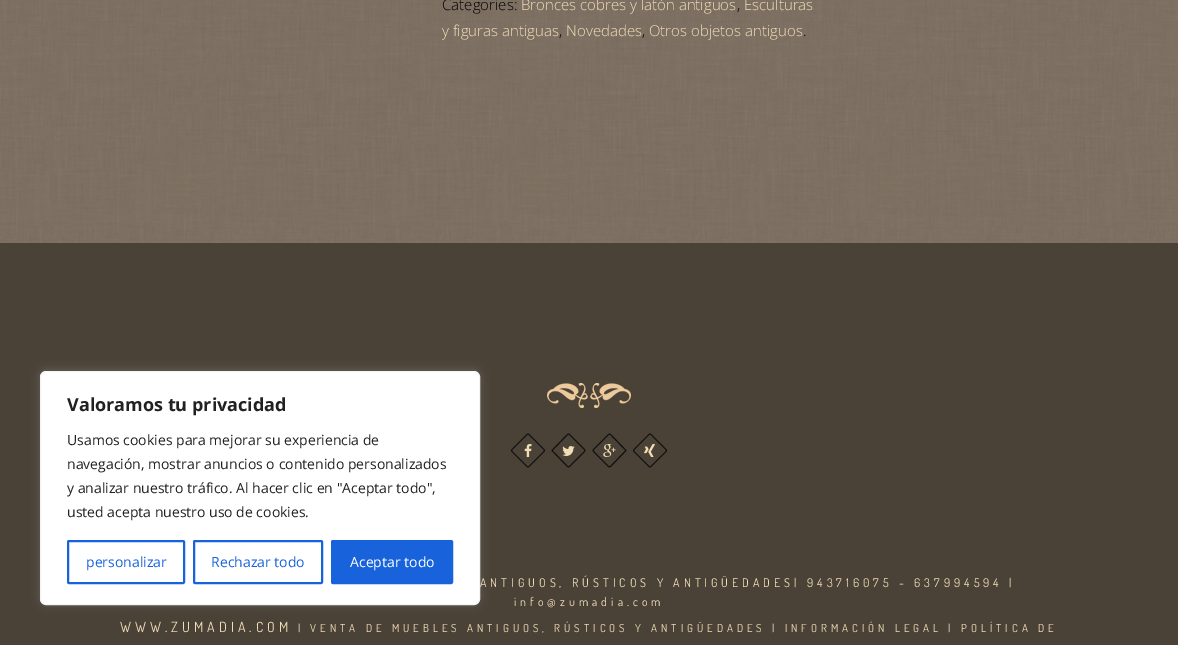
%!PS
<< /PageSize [1178 645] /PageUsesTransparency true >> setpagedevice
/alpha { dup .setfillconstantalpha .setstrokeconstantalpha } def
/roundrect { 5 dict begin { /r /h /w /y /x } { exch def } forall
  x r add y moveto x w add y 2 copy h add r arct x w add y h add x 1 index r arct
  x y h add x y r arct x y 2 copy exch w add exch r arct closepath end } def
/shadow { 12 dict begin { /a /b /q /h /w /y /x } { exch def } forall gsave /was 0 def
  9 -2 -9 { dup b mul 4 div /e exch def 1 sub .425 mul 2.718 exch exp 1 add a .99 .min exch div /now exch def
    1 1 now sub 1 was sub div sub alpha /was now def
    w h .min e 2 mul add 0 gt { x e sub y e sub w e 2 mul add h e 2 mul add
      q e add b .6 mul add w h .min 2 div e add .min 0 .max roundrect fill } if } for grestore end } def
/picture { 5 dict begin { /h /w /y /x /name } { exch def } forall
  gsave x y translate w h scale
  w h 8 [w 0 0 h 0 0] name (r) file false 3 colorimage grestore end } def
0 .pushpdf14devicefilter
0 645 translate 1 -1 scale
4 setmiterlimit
1 setgray
0 0 1178 645 rectfill
(img1.rgb) 0 0 1178 243 picture
/OpenSans-Light [15 0 0 -15 0 0] selectfont
0 setgray
442 10 moveto (Categories:) show
0.949 0.871 0.725 setrgbcolor
521 10 moveto (Bronces cobres y latón antiguos) show
0 setgray
737 10 moveto (,) show
0.949 0.871 0.725 setrgbcolor
744 10 moveto (Esculturas) show
442 36 moveto (y figuras antiguas) show
0 setgray
559 36 moveto (,) show
0.949 0.871 0.725 setrgbcolor
566 36 moveto (Novedades) show
0 setgray
642 36 moveto (,) show
0.949 0.871 0.725 setrgbcolor
649 36 moveto (Otros objetos antiguos) show
0 setgray
803 36 moveto (.) show
0.29 0.259 0.216 setrgbcolor
0 243 1178 402 rectfill
(img2.rgb) 547 383 84 25 picture
0.067 setgray
newpath 529 434.5 moveto 544 449.5 lineto 544.5 450 544.5 451 544 451.5 curveto 529 466.5 lineto 528.5 467 527.5 467 527 466.5 curveto 512 451.5 lineto 511.5 451 511.5 450 512 449.5 curveto 527 434.5 lineto 527.5 434 528.5 434 529 434.5 curveto closepath stroke
(img3.rgb) 524 444 8 13 picture
newpath 569.5 434.5 moveto 584.5 449.5 lineto 585 450 585 451 584.5 451.5 curveto 569.5 466.5 lineto 569 467 568 467 567.5 466.5 curveto 553 451.5 lineto 552 451 552 450 553 449.5 curveto 567.5 434.5 lineto 568 434 569 434 569.5 434.5 curveto closepath stroke
(img4.rgb) 562 446 13 10 picture
newpath 610.5 434.5 moveto 625 449.5 lineto 626 450 626 451 625 451.5 curveto 610.5 466.5 lineto 610 467 609 467 608.5 466.5 curveto 593.5 451.5 lineto 593 451 593 450 593.5 449.5 curveto 608.5 434.5 lineto 609 434 610 434 610.5 434.5 curveto closepath stroke
(img5.rgb) 603 444 13 13 picture
newpath 651 434.5 moveto 666 449.5 lineto 666.5 450 666.5 451 666 451.5 curveto 651 466.5 lineto 650.5 467 649.5 467 649 466.5 curveto 634 451.5 lineto 633.5 451 633.5 450 634 449.5 curveto 649 434.5 lineto 649.5 434 650.5 434 651 434.5 curveto closepath stroke
(img6.rgb) 644 444 11 13 picture
/Dosis-Regular [12 0 0 -12 0 0] selectfont
0.949 0.871 0.725 setrgbcolor
480 587 moveto 4 0 (ANTIGUOS, RÚSTICOS Y ANTIGÜEDADES| 943716075 - 637994594 |) ashow
514 606 moveto 4 0 (info@zumadia.com) ashow
/Dosis-Regular [14 0 0 -14 0 0] selectfont
120 632 moveto 4 0 (WWW.ZUMADIA.COM) ashow
/Dosis-Regular [11 0 0 -11 0 0] selectfont
298 632 moveto 4 0 (| VENTA DE MUEBLES ANTIGUOS, RÚSTICOS Y ANTIGÜEDADES | INFORMACIÓN LEGAL | POLÍTICA DE) ashow
0.675 0.671 0.671 setrgbcolor
40 370 440 234 6 5 0.3 shadow
1 setgray
40.5 371.5 439 233 5.5 roundrect gsave fill grestore
0.957 setgray
stroke
/OpenSans-Bold [18 0 0 -18 0 0] selectfont
0.129 setgray
67 411 moveto (Valoramos tu privacidad) show
/OpenSans-Regular [14 0 0 -14 0 0] selectfont
67 445 moveto (Usamos cookies para mejorar su experiencia de) show
67 469 moveto (navegación, mostrar anuncios o contenido personalizados) show
67 493 moveto (y analizar nuestro tráfico. Al hacer clic en "Aceptar todo",) show
67 517 moveto (usted acepta nuestro uso de cookies.) show
0.094 0.388 0.863 setrgbcolor
2 setlinewidth
68 541 116 42 1 roundrect stroke
86 567 moveto (personalizar) show
194 541 128 42 1 roundrect stroke
211 567 moveto (Rechazar todo) show
332 541 120 42 1 roundrect gsave fill grestore
stroke
1 setgray
350 567 moveto (Aceptar todo) show
.poppdf14devicefilter showpage
